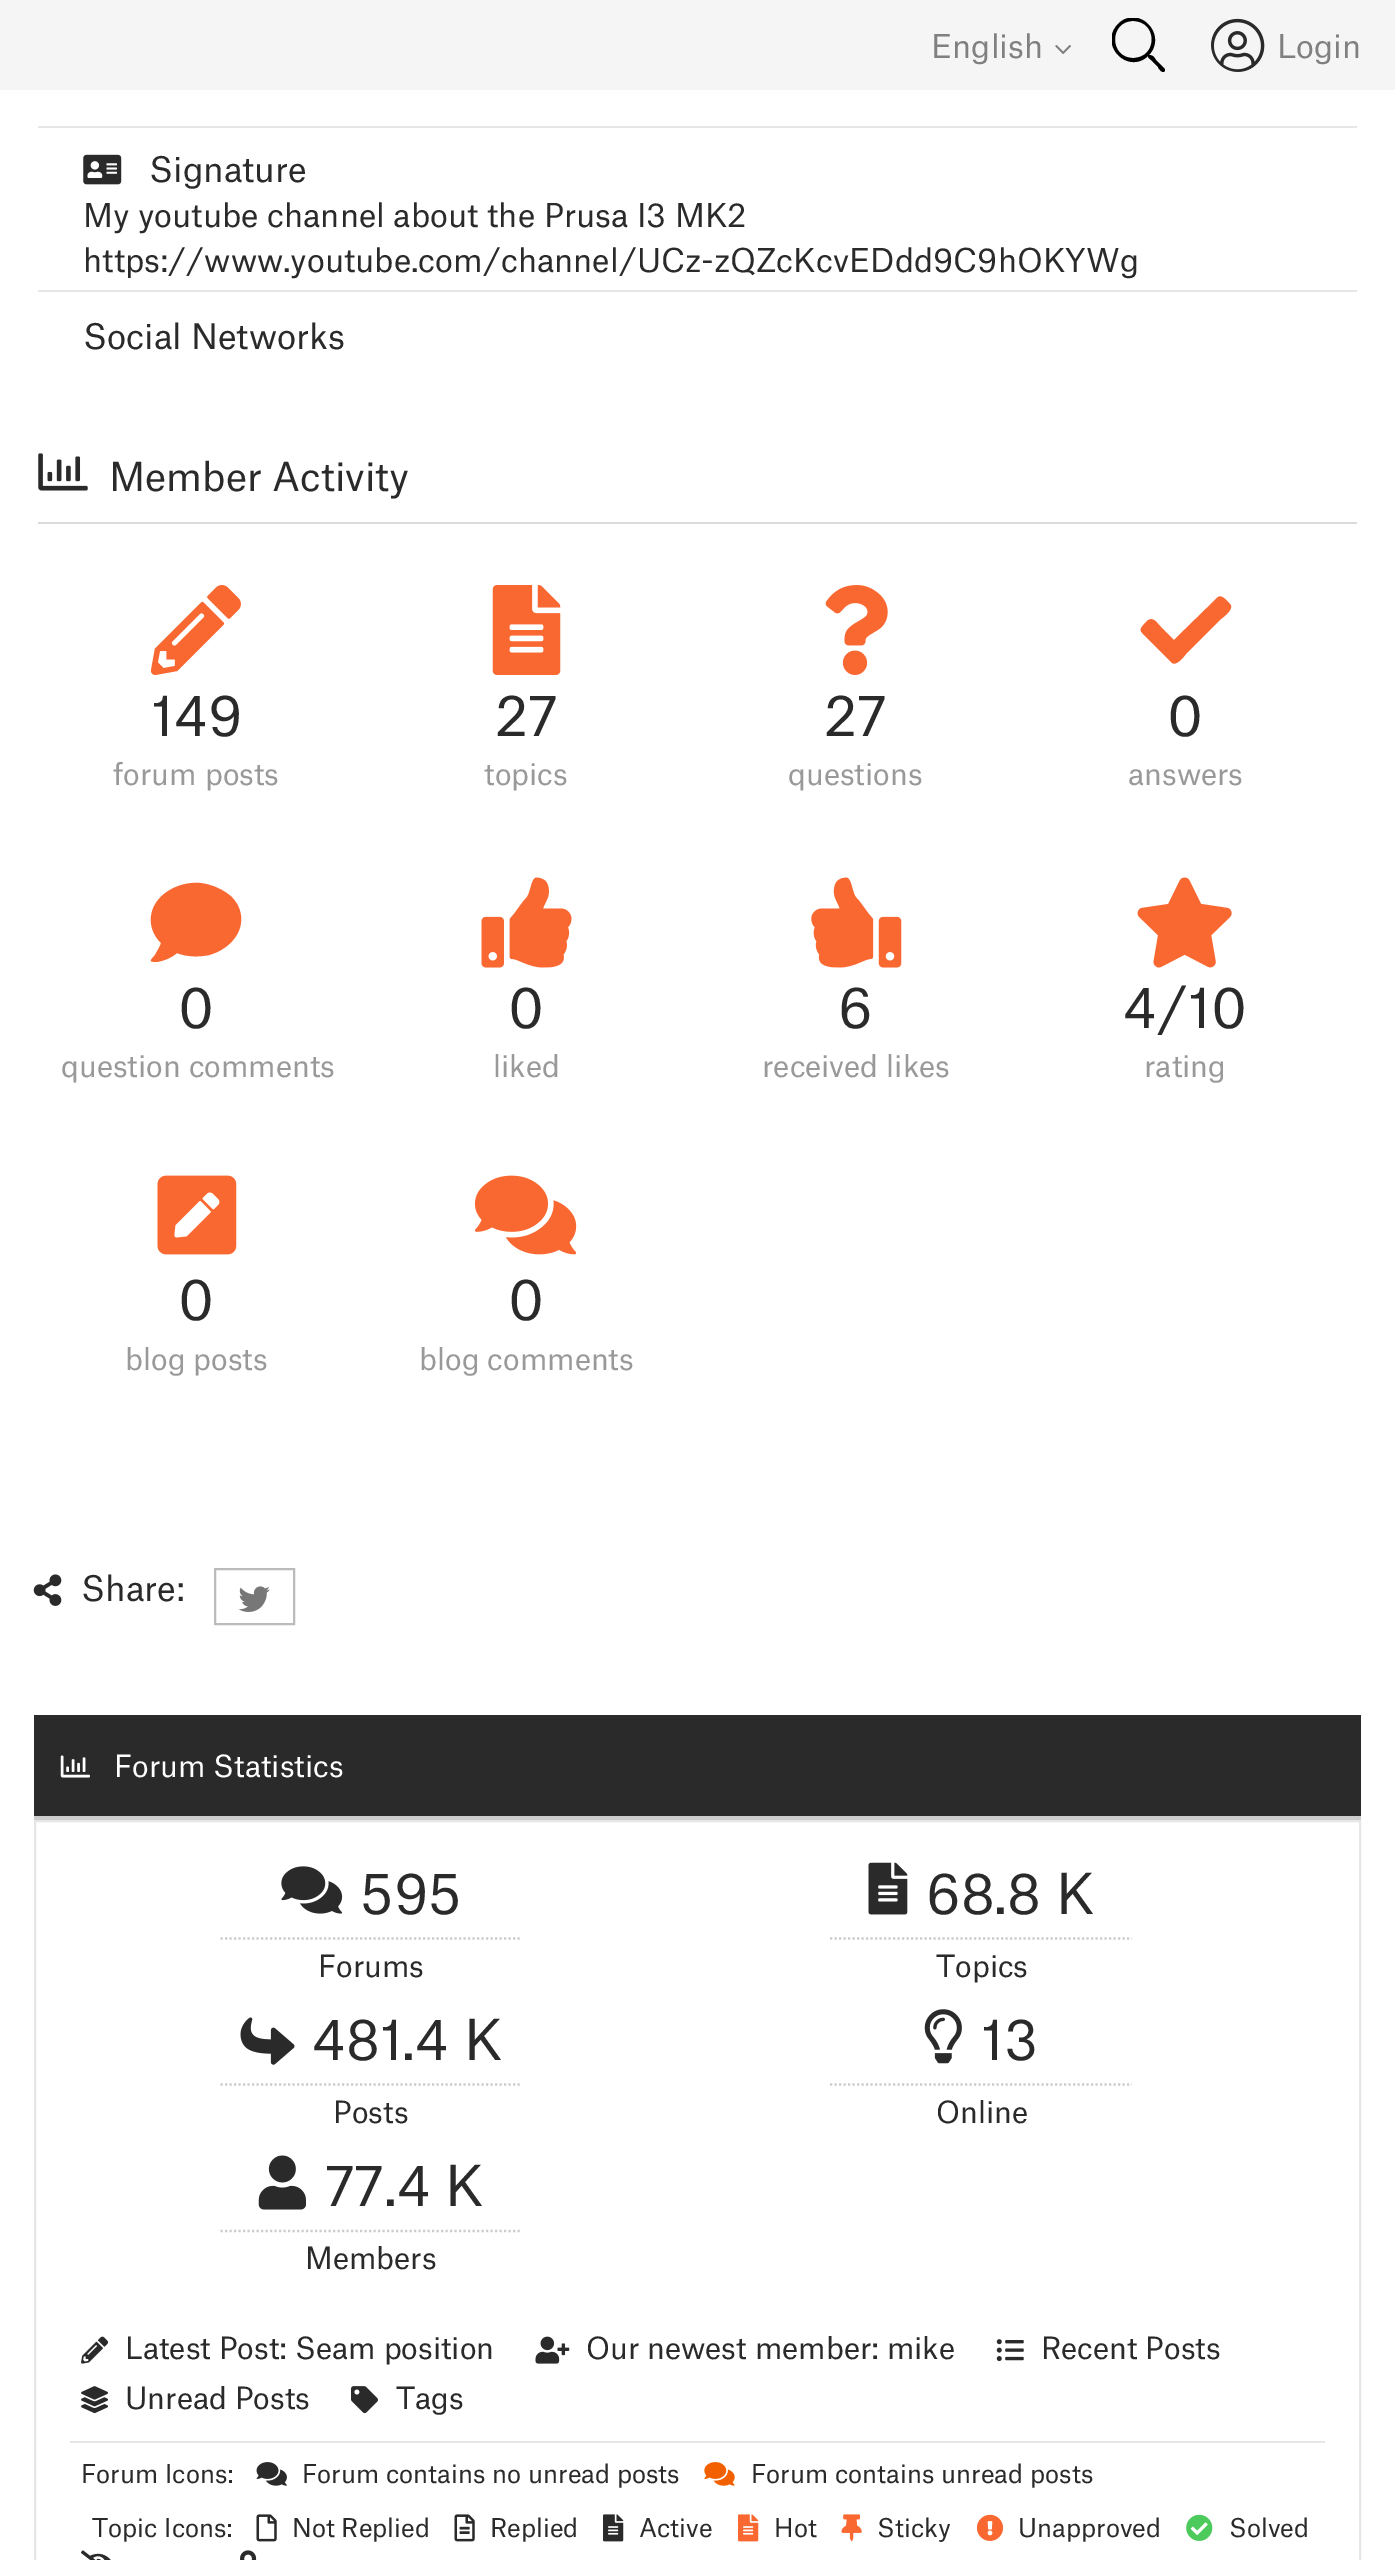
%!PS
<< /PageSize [1395 2560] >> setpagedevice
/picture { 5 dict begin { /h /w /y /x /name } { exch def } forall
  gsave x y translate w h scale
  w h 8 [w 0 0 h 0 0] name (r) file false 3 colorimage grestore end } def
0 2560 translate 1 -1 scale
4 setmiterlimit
1 setgray
0 0 1395 2560 rectfill
0.961 setgray
0 0 1395 90 rectfill
/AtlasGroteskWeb-Regular [31.5 0 0 -31.5 0 0] selectfont
0.502 setgray
931 58 moveto (English) show
(img1.rgb) 1055 45 16 9 picture
gsave
1112 18 54 54 rectclip
0 setgray
newpath 1165 69 moveto 1156 60 lineto 1154 57 1153 55 1149 55 curveto 1168 34 1138 4 1118 24 curveto 1098 45 1128 75 1148 56 curveto 1148 58 1149 58 1151 60 curveto 1158 67 lineto 1158 68 1164 76 1165 70 curveto closepath 1133 58 moveto 1109 58 1109 21 1133 21 curveto 1158 21 1158 58 1133 58 curveto closepath fill
grestore
(img2.rgb) 1211 18 54 54 picture
1277 58 moveto (Login) show
0.902 setgray
38 126 1319 2 rectfill
(img3.rgb) 83 154 39 31 picture
/AtlasGroteskWeb-Regular [33.75 0 0 -33.75 0 0] selectfont
0.165 setgray
149 182 moveto (Signature) show
/AtlasGroteskWeb-Regular [31.5 0 0 -31.5 0 0] selectfont
83 227 moveto (My youtube channel about the Prusa I3 MK2) show
83 272 moveto (https://www.youtube.com/channel/UCz-zQZcKcvEDdd9C9hOKYWg) show
0.902 setgray
38 290 1319 2 rectfill
/AtlasGroteskWeb-Regular [33.75 0 0 -33.75 0 0] selectfont
0.165 setgray
83 349 moveto (Social Networks) show
0.855 setgray
38 522 1319 2 rectfill
(img4.rgb) 38 453 50 38 picture
/AtlasGroteskWeb-Regular [38.25 0 0 -38.25 0 0] selectfont
0.165 setgray
109 491 moveto (Member Activity) show
(img5.rgb) 150 585 91 90 picture
/AtlasGroteskWeb-Regular [54 0 0 -54 0 0] selectfont
151 736 moveto (149) show
/AtlasGroteskWeb-Regular [29.25 0 0 -29.25 0 0] selectfont
0.6 setgray
113 785 moveto (forum posts) show
(img6.rgb) 492 585 69 90 picture
/AtlasGroteskWeb-Regular [54 0 0 -54 0 0] selectfont
0.165 setgray
495 736 moveto (27) show
/AtlasGroteskWeb-Regular [29.25 0 0 -29.25 0 0] selectfont
0.6 setgray
484 785 moveto (topics) show
(img7.rgb) 825 585 63 90 picture
/AtlasGroteskWeb-Regular [54 0 0 -54 0 0] selectfont
0.165 setgray
824 736 moveto (27) show
/AtlasGroteskWeb-Regular [29.25 0 0 -29.25 0 0] selectfont
0.6 setgray
788 785 moveto (questions) show
0.98 0.408 0.192 setrgbcolor
newpath 1171 662 moveto 1147 638 lineto 1138 629 1139 630 1147 621 curveto 1153 616 1156 622 1161 627 curveto 1174 640 lineto 1217 598 lineto 1221 593 1227 601 1230 604 curveto 1235 609 1222 618 1221 619 curveto 1186 654 lineto 1185 655 1176 668 1171 662 curveto closepath fill
/AtlasGroteskWeb-Regular [54 0 0 -54 0 0] selectfont
0.165 setgray
1167 736 moveto (0) show
/AtlasGroteskWeb-Regular [29.25 0 0 -29.25 0 0] selectfont
0.6 setgray
1128 785 moveto (answers) show
0.98 0.408 0.192 setrgbcolor
newpath 164 894 moveto 174 886 187 882 200 883 curveto 210 884 220 888 228 894 curveto 235 899 240 907 241 916 curveto 243 935 227 950 209 955 curveto 199 957 187 957 177 953 curveto 171 958 164 961 156 962 curveto 147 962 152 959 155 955 curveto 157 951 160 947 161 943 curveto 146 928 148 907 164 894 curveto closepath fill
/AtlasGroteskWeb-Regular [54 0 0 -54 0 0] selectfont
0.165 setgray
178 1028 moveto (0) show
/AtlasGroteskWeb-Regular [29.25 0 0 -29.25 0 0] selectfont
0.6 setgray
61 1077 moveto (question comments) show
(img8.rgb) 481 877 91 91 picture
/AtlasGroteskWeb-Regular [54 0 0 -54 0 0] selectfont
0.165 setgray
508 1028 moveto (0) show
/AtlasGroteskWeb-Regular [29.25 0 0 -29.25 0 0] selectfont
0.6 setgray
493 1077 moveto (liked) show
(img9.rgb) 811 877 91 91 picture
/AtlasGroteskWeb-Regular [54 0 0 -54 0 0] selectfont
0.165 setgray
838 1028 moveto (6) show
/AtlasGroteskWeb-Regular [29.25 0 0 -29.25 0 0] selectfont
0.6 setgray
762 1077 moveto (received likes) show
(img10.rgb) 1137 877 95 91 picture
/AtlasGroteskWeb-Regular [54 0 0 -54 0 0] selectfont
0.165 setgray
1123 1028 moveto (4/10) show
/AtlasGroteskWeb-Regular [29.25 0 0 -29.25 0 0] selectfont
0.6 setgray
1144 1077 moveto (rating) show
(img11.rgb) 157 1175 80 80 picture
/AtlasGroteskWeb-Regular [54 0 0 -54 0 0] selectfont
0.165 setgray
178 1320 moveto (0) show
/AtlasGroteskWeb-Regular [29.25 0 0 -29.25 0 0] selectfont
0.6 setgray
125 1370 moveto (blog posts) show
(img12.rgb) 474 1175 103 80 picture
/AtlasGroteskWeb-Regular [54 0 0 -54 0 0] selectfont
0.165 setgray
508 1320 moveto (0) show
/AtlasGroteskWeb-Regular [29.25 0 0 -29.25 0 0] selectfont
0.6 setgray
419 1370 moveto (blog comments) show
(img13.rgb) 33 1574 29 32 picture
/AtlasGroteskWeb-Regular [33.75 0 0 -33.75 0 0] selectfont
0.165 setgray
81 1601 moveto (Share:) show
0.733 setgray
2 setlinewidth
215 1569 79 55 rectstroke
(img14.rgb) 238 1586 32 26 picture
0.165 setgray
34 1715 1327 101 rectfill
0.8 setgray
34 1816 1327 4 rectfill
(img15.rgb) 60 1755 30 23 picture
/AtlasGroteskWeb-Regular [29.25 0 0 -29.25 0 0] selectfont
1 setgray
114 1777 moveto (Forum Statistics) show
0.902 setgray
35 1821 1325 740 rectstroke
(img16.rgb) 281 1866 62 48 picture
/AtlasGroteskWeb-Regular [54 0 0 -54 0 0] selectfont
0.165 setgray
360 1914 moveto (595) show
0.8 setgray
2.2 setlinewidth
[2.25 2.25] 0 setdash
newpath 220.5 1938.5 moveto 522 1938.5 lineto stroke
/AtlasGroteskWeb-Regular [29.25 0 0 -29.25 0 0] selectfont
0.165 setgray
318 1977 moveto (Forums) show
(img17.rgb) 868 1862 40 53 picture
/AtlasGroteskWeb-Regular [54 0 0 -54 0 0] selectfont
926 1914 moveto (68.8 K) show
0.8 setgray
newpath 830 1938.5 moveto 1132 1938.5 lineto stroke
/AtlasGroteskWeb-Regular [29.25 0 0 -29.25 0 0] selectfont
0.165 setgray
936 1977 moveto (Topics) show
(img18.rgb) 240 2017 55 48 picture
/AtlasGroteskWeb-Regular [54 0 0 -54 0 0] selectfont
312 2060 moveto (481.4 K) show
0.8 setgray
newpath 220.5 2084.5 moveto 522 2084.5 lineto stroke
/AtlasGroteskWeb-Regular [29.25 0 0 -29.25 0 0] selectfont
0.165 setgray
333 2123 moveto (Posts) show
(img19.rgb) 924 2009 38 55 picture
/AtlasGroteskWeb-Regular [54 0 0 -54 0 0] selectfont
981 2060 moveto (13) show
0.8 setgray
newpath 830 2084.5 moveto 1132 2084.5 lineto stroke
/AtlasGroteskWeb-Regular [29.25 0 0 -29.25 0 0] selectfont
0.165 setgray
936 2123 moveto (Online) show
(img20.rgb) 258 2155 48 55 picture
/AtlasGroteskWeb-Regular [54 0 0 -54 0 0] selectfont
325 2206 moveto (77.4 K) show
0.8 setgray
newpath 220.5 2231 moveto 522 2231 lineto stroke
/AtlasGroteskWeb-Regular [29.25 0 0 -29.25 0 0] selectfont
0.165 setgray
305 2269 moveto (Members) show
(img21.rgb) 81 2336 27 28 picture
125 2359 moveto (Latest Post: Seam position) show
(img22.rgb) 535 2336 35 28 picture
586 2359 moveto (Our newest member: mike) show
(img23.rgb) 996 2339 28 23 picture
1041 2359 moveto (Recent Posts) show
(img24.rgb) 81 2386 27 28 picture
125 2409 moveto (Unread Posts) show
(img25.rgb) 351 2386 27 28 picture
396 2409 moveto (Tags) show
0.902 setgray
70 2441 1255 2 rectfill
/AtlasGroteskWeb-Regular [24.75 0 0 -24.75 0 0] selectfont
0.165 setgray
81 2483 moveto (Forum Icons:) show
(img26.rgb) 256 2462 31 24 picture
302 2483 moveto (Forum contains no unread posts) show
(img27.rgb) 704 2462 31 24 picture
751 2483 moveto (Forum contains unread posts) show
92 2537 moveto (Topic Icons:) show
(img28.rgb) 256 2514 21 28 picture
292 2537 moveto (Not Replied) show
(img29.rgb) 454 2514 21 28 picture
490 2537 moveto (Replied) show
(img30.rgb) 603 2514 21 28 picture
639 2537 moveto (Active) show
(img31.rgb) 738 2514 21 28 picture
774 2537 moveto (Hot) show
(img32.rgb) 841 2514 21 28 picture
877 2537 moveto (Sticky) show
(img33.rgb) 976 2514 28 27 picture
1018 2537 moveto (Unapproved) show
(img34.rgb) 1186 2514 27 27 picture
1229 2537 moveto (Solved) show
(img35.rgb) 81 2550 30 10 picture
(img36.rgb) 240 2550 17 10 picture
showpage
